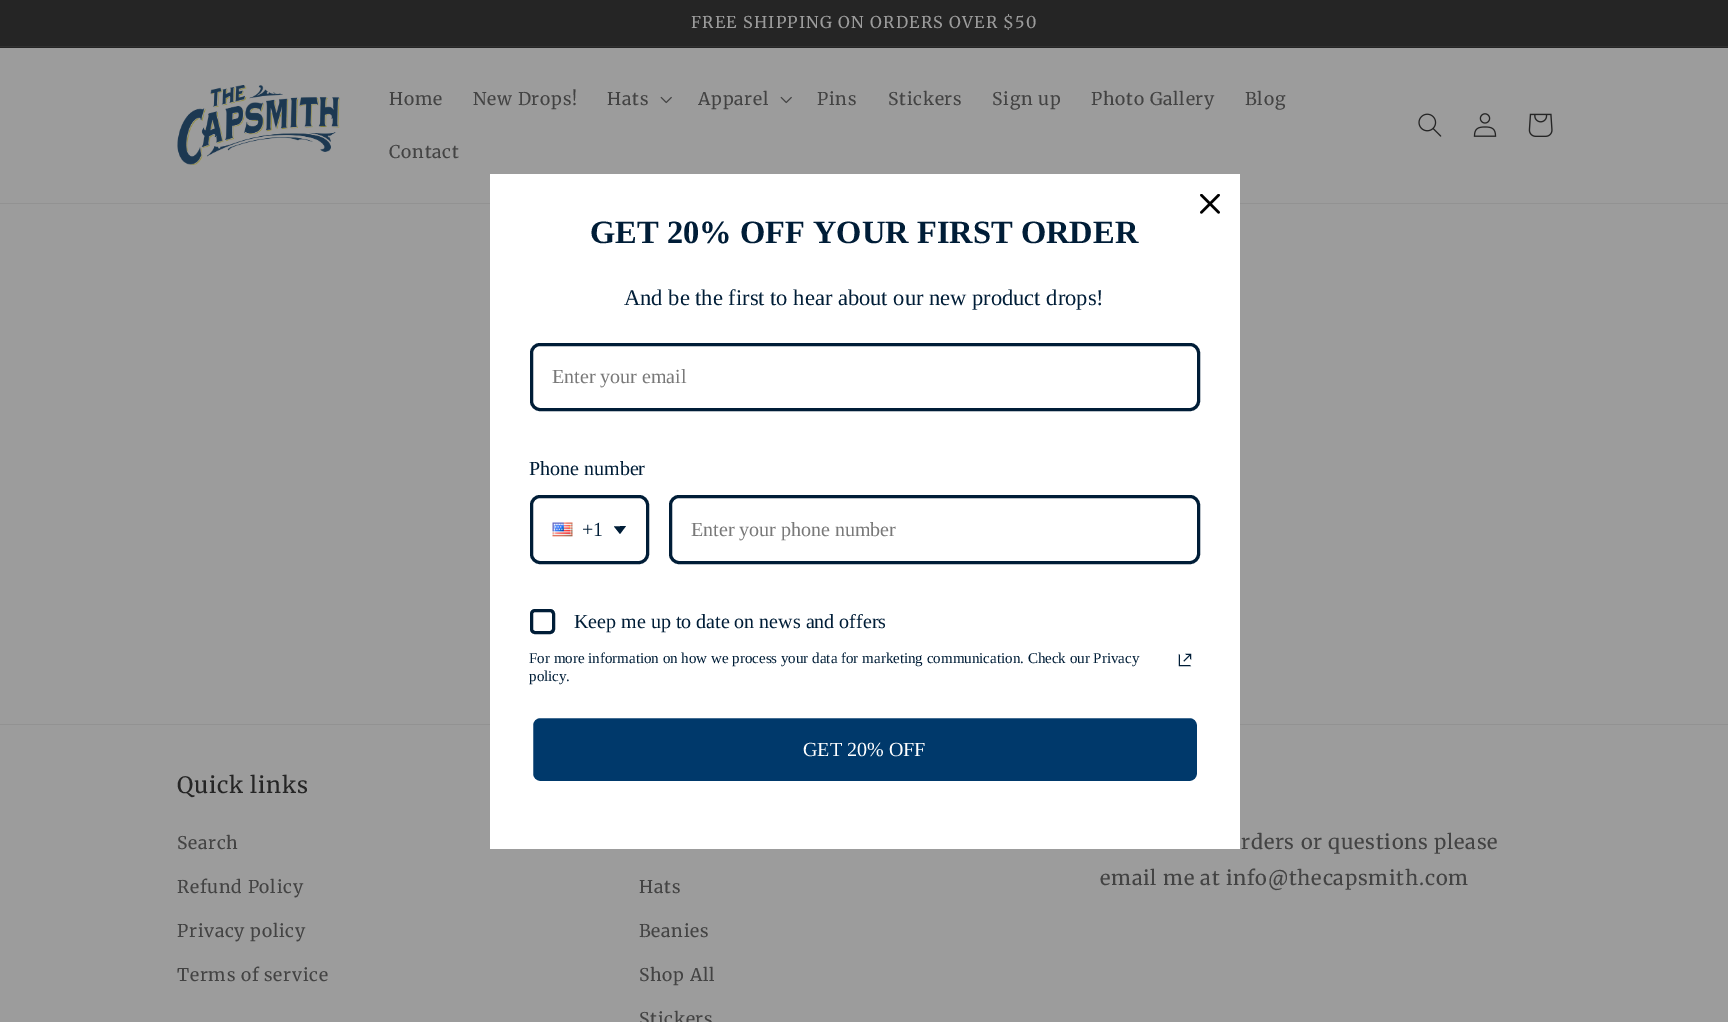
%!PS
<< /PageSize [1728 1022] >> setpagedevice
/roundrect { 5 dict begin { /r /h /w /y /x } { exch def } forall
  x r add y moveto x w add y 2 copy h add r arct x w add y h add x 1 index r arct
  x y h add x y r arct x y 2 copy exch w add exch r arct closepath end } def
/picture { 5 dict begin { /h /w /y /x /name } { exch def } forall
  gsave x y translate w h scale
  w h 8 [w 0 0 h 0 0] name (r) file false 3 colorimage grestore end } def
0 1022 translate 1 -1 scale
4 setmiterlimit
0.612 setgray
0 0 1728 1022 rectfill
0.145 setgray
0 0 1728 48 rectfill
0.184 setgray
0 46 1728 1 rectfill
/Merriweather-Regular [16.25 0 0 -16.25 0 0] selectfont
0.612 setgray
691 28 moveto 1.25 0 (FREE SHIPPING ON ORDERS OVER $50) ashow
0.573 setgray
0 203 1728 1 rectfill
(img1.rgb) 177 85 163 80 picture
/Merriweather-Regular [17.5 0 0 -17.5 0 0] selectfont
0.263 setgray
389 105 moveto 0.75 0 (Home) ashow
473 105 moveto 0.75 0 (New Drops!) ashow
607 105 moveto 0.75 0 (Hats) ashow
(img2.rgb) 660 96 12 8 picture
698 105 moveto 0.75 0 (Apparel) ashow
(img2.rgb) 780 96 12 8 picture
817 105 moveto 0.75 0 (Pins) ashow
888 105 moveto 0.75 0 (Stickers) ashow
992 105 moveto 0.75 0 (Sign up) ashow
1091 105 moveto 0.75 0 (Photo Gallery) ashow
1245 105 moveto 0.75 0 (Blog) ashow
389 158 moveto 0.75 0 (Contact) ashow
(img3.rgb) 1418 113 24 24 picture
(img4.rgb) 1473 113 24 24 picture
(img5.rgb) 1528 113 25 24 picture
0.573 setgray
0 724 1728 1 rectfill
1 setgray
490 174 750 675 rectfill
(img6.rgb) 1200 194 20 20 picture
/LiberationSerif-Bold [32.5 0 0 -32.5 0 0] selectfont
0 0.114 0.216 setrgbcolor
590 243 moveto (GET 20% OFF YOUR FIRST ORDER) show
/LiberationSerif-Regular [22.5 0 0 -22.5 0 0] selectfont
624 305 moveto (And be the first to hear about our new product drops!) show
3 setlinewidth
531.5 344.5 667 65 8.5 roundrect stroke
/LiberationSerif-Regular [20 0 0 -20 0 0] selectfont
0.475 setgray
552 383 moveto (Enter your email) show
0 0.114 0.216 setrgbcolor
529 475 moveto (Phone number) show
531.5 496.5 116 66 8.5 roundrect stroke
(img7.rgb) 552 522 21 15 picture
582 536 moveto (+1) show
newpath 614 526.5 moveto 626 526 lineto 620 534 lineto closepath eofill
670.5 496.5 528 66 8.5 roundrect stroke
0.475 setgray
691 536 moveto (Enter your phone number) show
0 0.114 0.216 setrgbcolor
531.5 610.5 22 22 3.5 roundrect stroke
574 628 moveto (Keep me up to date on news and offers) show
/LiberationSerif-Regular [15 0 0 -15 0 0] selectfont
529 663 moveto (For more information on how we process your data for marketing communication. Check our Privacy) show
529 681 moveto (policy.) show
(img8.rgb) 1178 653 14 14 picture
0 0.224 0.42 setrgbcolor
531.5 716.5 667 66 8.5 roundrect gsave fill grestore
1 setgray
stroke
/LiberationSerif-Regular [20 0 0 -20 0 0] selectfont
803 756 moveto (GET 20% OFF) show
/Merriweather-Regular [22.5 0 0 -22.5 0 0] selectfont
0.145 setgray
177 793 moveto 0.75 0 (Quick links) ashow
/Merriweather-Regular [17.5 0 0 -17.5 0 0] selectfont
0.263 setgray
177 849 moveto 0.75 0 (Search) ashow
177 893 moveto 0.75 0 (Refund Policy) ashow
177 937 moveto 0.75 0 (Privacy policy) ashow
177 981 moveto 0.75 0 (Terms of service) ashow
/Merriweather-Regular [20 0 0 -20 0 0] selectfont
1241 849 moveto 0.75 0 (rders or questions please) ashow
1100 885 moveto 0.75 0 (email me at info@thecapsmith.com) ashow
/Merriweather-Regular [17.5 0 0 -17.5 0 0] selectfont
639 893 moveto 0.75 0 (Hats) ashow
639 937 moveto 0.75 0 (Beanies) ashow
639 981 moveto 0.75 0 (Shop All) ashow
639 1025 moveto 0.75 0 (Stickers) ashow
showpage
